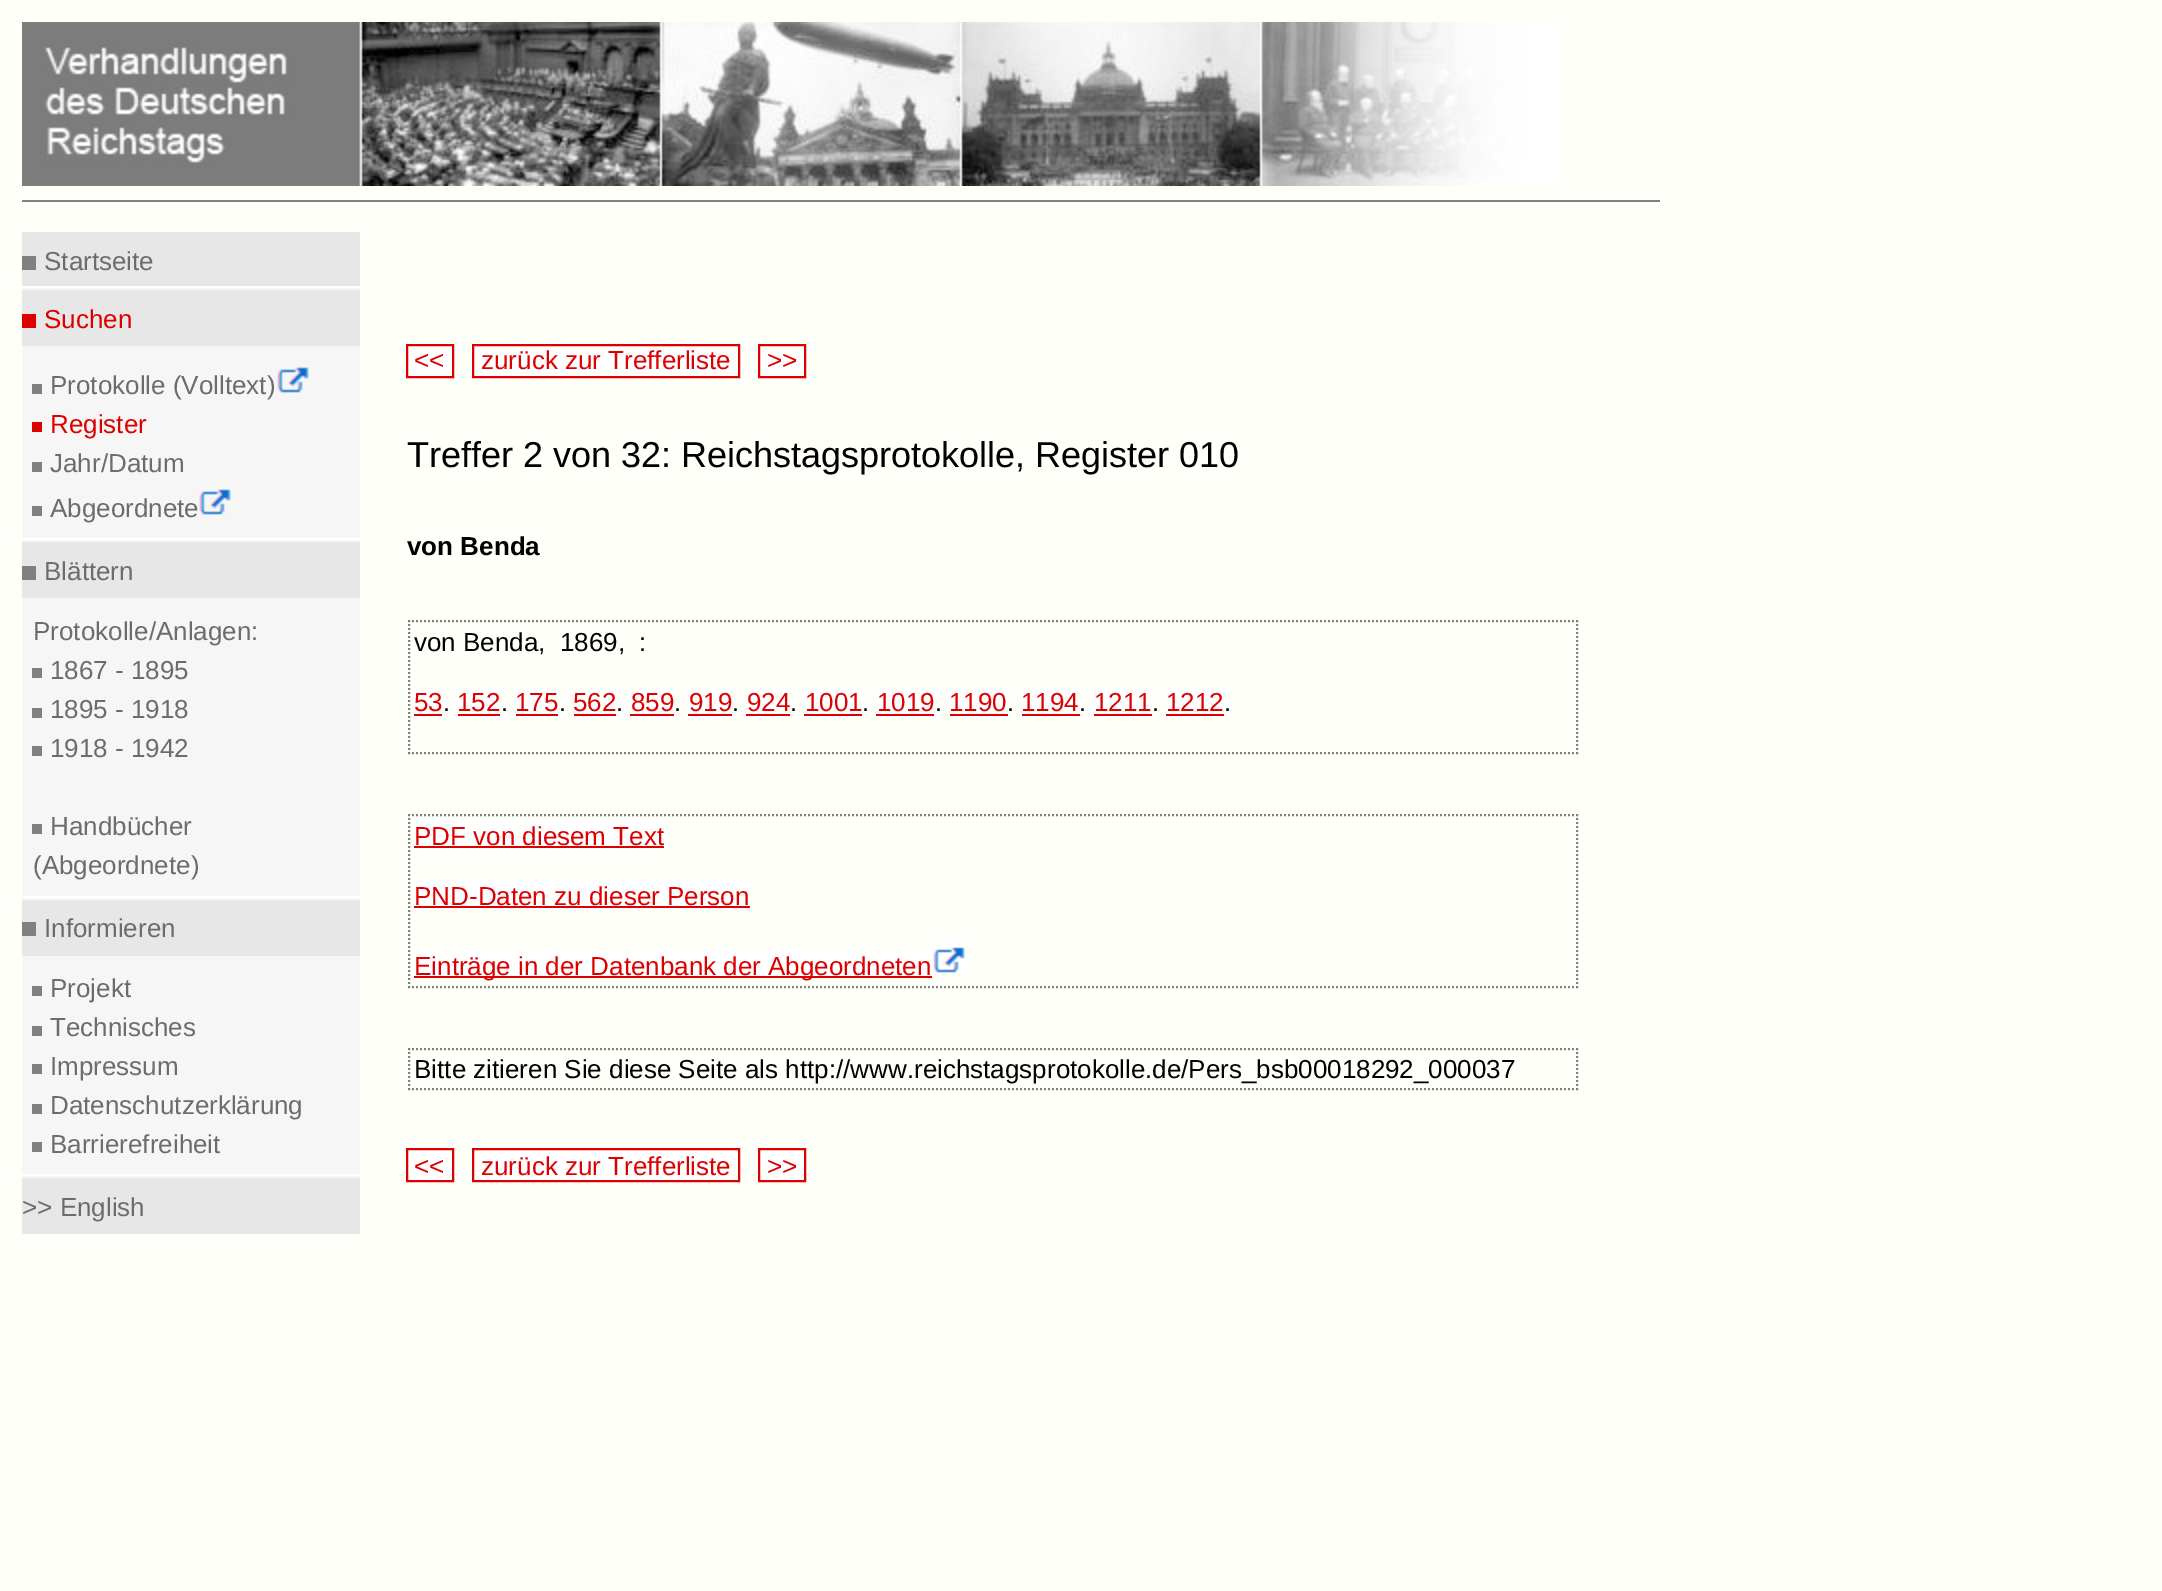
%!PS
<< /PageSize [2162 1591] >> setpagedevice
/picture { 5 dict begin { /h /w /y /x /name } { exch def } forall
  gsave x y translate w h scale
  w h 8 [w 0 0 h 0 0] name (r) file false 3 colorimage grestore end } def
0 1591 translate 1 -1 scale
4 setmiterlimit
1 1 0.98 setrgbcolor
0 0 2162 1591 rectfill
(img1.rgb) 22 22 1540 164 picture
0.502 setgray
22 200 1638 2 rectfill
0.965 setgray
22 288 338 890 rectfill
0.906 setgray
22 232 338 54 rectfill
0.502 setgray
22 256 14 14 rectfill
/LiberationSans-Regular [26 0 0 -26 0 0] selectfont
0.424 setgray
44 270 moveto (Startseite) show
1 setgray
2 286 364 2 rectfill
0.906 setgray
22 290 338 56 rectfill
0.871 0 0 setrgbcolor
22 314 14 14 rectfill
0.867 0 0 setrgbcolor
44 328 moveto (Suchen) show
0.502 setgray
32 384 10 10 rectfill
0.424 setgray
50 394 moveto (Protokolle \(Volltext\)) show
(img2.rgb) 277 367 32 26 picture
0.871 0 0 setrgbcolor
32 422 10 10 rectfill
0.867 0 0 setrgbcolor
50 433 moveto (Register) show
0.502 setgray
32 462 10 10 rectfill
0.424 setgray
50 472 moveto (Jahr/Datum) show
0.502 setgray
32 506 10 10 rectfill
0.424 setgray
50 517 moveto (Abgeordnete) show
(img2.rgb) 199 489 32 26 picture
1 setgray
2 538 364 2 rectfill
0.906 setgray
22 542 338 56 rectfill
0.502 setgray
22 566 14 14 rectfill
0.424 setgray
44 580 moveto (Blättern) show
33 640 moveto (Protokolle/Anlagen:) show
0.502 setgray
32 668 10 10 rectfill
0.424 setgray
50 679 moveto (1867 - 1895) show
0.502 setgray
32 708 10 10 rectfill
0.424 setgray
50 718 moveto (1895 - 1918) show
0.502 setgray
32 746 10 10 rectfill
0.424 setgray
50 757 moveto (1918 - 1942) show
0.502 setgray
32 824 10 10 rectfill
0.424 setgray
50 835 moveto (Handbücher) show
33 874 moveto (\(Abgeordnete\)) show
1 setgray
2 896 364 2 rectfill
0.906 setgray
22 900 338 56 rectfill
0.502 setgray
22 922 14 14 rectfill
0.424 setgray
44 937 moveto (Informieren) show
0.502 setgray
32 986 10 10 rectfill
0.424 setgray
50 997 moveto (Projekt) show
0.502 setgray
32 1026 10 10 rectfill
0.424 setgray
50 1036 moveto (Technisches) show
0.502 setgray
32 1064 10 10 rectfill
0.424 setgray
50 1075 moveto (Impressum) show
0.502 setgray
32 1104 10 10 rectfill
0.424 setgray
50 1114 moveto (Datenschutzerklärung) show
0.502 setgray
32 1142 10 10 rectfill
0.424 setgray
50 1153 moveto (Barrierefreiheit) show
1 setgray
2 1174 364 2 rectfill
0.906 setgray
22 1178 338 56 rectfill
0.424 setgray
22 1216 moveto (>> English) show
1 setgray
408 346 44 30 rectfill
0.867 0 0 setrgbcolor
414 369 moveto (<<) show
2 setlinewidth
407 345 46 32 rectstroke
1 setgray
474 346 264 30 rectfill
0.867 0 0 setrgbcolor
481 369 moveto (zurück zur Trefferliste) show
473 345 266 32 rectstroke
1 setgray
760 346 44 30 rectfill
0.867 0 0 setrgbcolor
767 369 moveto (>>) show
759 345 46 32 rectstroke
/LiberationSans-Regular [36 0 0 -36 0 0] selectfont
0 setgray
407 467 moveto (Treffer 2 von 32: Reichstagsprotokolle, Register 010) show
/LiberationSans-Bold [26 0 0 -26 0 0] selectfont
407 555 moveto (von Benda) show
0.502 setgray
[2 2] 0 setdash
newpath 408 621 moveto 1578 621 lineto stroke
newpath 1577 620 moveto 1577 754 lineto stroke
newpath 408 753 moveto 1578 753 lineto stroke
newpath 409 620 moveto 409 754 lineto stroke
/LiberationSans-Regular [26 0 0 -26 0 0] selectfont
0 setgray
414 651 moveto (von Benda,) show
560 651 moveto (1869,) show
639 651 moveto (:) show
1 setgray
414 688 28 30 rectfill
0.867 0 0 setrgbcolor
414 711 moveto (53) show
414 714 28 2 rectfill
0 setgray
443 711 moveto (.) show
1 setgray
458 688 42 30 rectfill
0.867 0 0 setrgbcolor
457 711 moveto (152) show
458 714 42 2 rectfill
0 setgray
501 711 moveto (.) show
1 setgray
516 688 42 30 rectfill
0.867 0 0 setrgbcolor
515 711 moveto (175) show
516 714 42 2 rectfill
0 setgray
559 711 moveto (.) show
1 setgray
574 688 42 30 rectfill
0.867 0 0 setrgbcolor
573 711 moveto (562) show
574 714 42 2 rectfill
0 setgray
616 711 moveto (.) show
1 setgray
630 688 44 30 rectfill
0.867 0 0 setrgbcolor
631 711 moveto (859) show
630 714 44 2 rectfill
0 setgray
674 711 moveto (.) show
1 setgray
688 688 44 30 rectfill
0.867 0 0 setrgbcolor
689 711 moveto (919) show
688 714 44 2 rectfill
0 setgray
732 711 moveto (.) show
1 setgray
746 688 44 30 rectfill
0.867 0 0 setrgbcolor
747 711 moveto (924) show
746 714 44 2 rectfill
0 setgray
790 711 moveto (.) show
1 setgray
804 688 58 30 rectfill
0.867 0 0 setrgbcolor
805 711 moveto (1001) show
804 714 58 2 rectfill
0 setgray
862 711 moveto (.) show
1 setgray
876 688 58 30 rectfill
0.867 0 0 setrgbcolor
877 711 moveto (1019) show
876 714 58 2 rectfill
0 setgray
935 711 moveto (.) show
1 setgray
950 688 58 30 rectfill
0.867 0 0 setrgbcolor
949 711 moveto (1190) show
950 714 58 2 rectfill
0 setgray
1007 711 moveto (.) show
1 setgray
1022 688 58 30 rectfill
0.867 0 0 setrgbcolor
1021 711 moveto (1194) show
1022 714 58 2 rectfill
0 setgray
1079 711 moveto (.) show
1 setgray
1094 688 58 30 rectfill
0.867 0 0 setrgbcolor
1094 711 moveto (1211) show
1094 714 58 2 rectfill
0 setgray
1152 711 moveto (.) show
1 setgray
1166 688 58 30 rectfill
0.867 0 0 setrgbcolor
1166 711 moveto (1212) show
1166 714 58 2 rectfill
0 setgray
1224 711 moveto (.) show
0.502 setgray
newpath 408 815 moveto 1578 815 lineto stroke
newpath 1577 814 moveto 1577 988 lineto stroke
newpath 408 987 moveto 1578 987 lineto stroke
newpath 409 814 moveto 409 988 lineto stroke
1 setgray
414 820 250 30 rectfill
0.867 0 0 setrgbcolor
414 845 moveto (PDF von diesem Text) show
414 846 250 2 rectfill
1 setgray
414 880 336 30 rectfill
0.867 0 0 setrgbcolor
414 905 moveto (PND-Daten zu dieser Person) show
414 906 336 2 rectfill
1 setgray
414 950 518 30 rectfill
0.867 0 0 setrgbcolor
414 976 518 2 rectfill
414 975 moveto (Einträge in der Datenbank der Abgeordneten) show
1 setgray
932 940 34 34 rectfill
(img3.rgb) 933 947 32 26 picture
0.502 setgray
newpath 408 1049 moveto 1578 1049 lineto stroke
newpath 1577 1048 moveto 1577 1090 lineto stroke
newpath 408 1089 moveto 1578 1089 lineto stroke
newpath 409 1048 moveto 409 1090 lineto stroke
0 setgray
414 1078 moveto (Bitte zitieren Sie diese Seite als http://www.reichstagsprotokolle.de/Pers_bsb00018292_000037) show
1 setgray
408 1150 44 30 rectfill
0.867 0 0 setrgbcolor
414 1175 moveto (<<) show
[] 0 setdash
407 1149 46 32 rectstroke
1 setgray
474 1150 264 30 rectfill
0.867 0 0 setrgbcolor
481 1175 moveto (zurück zur Trefferliste) show
473 1149 266 32 rectstroke
1 setgray
760 1150 44 30 rectfill
0.867 0 0 setrgbcolor
767 1175 moveto (>>) show
759 1149 46 32 rectstroke
showpage
